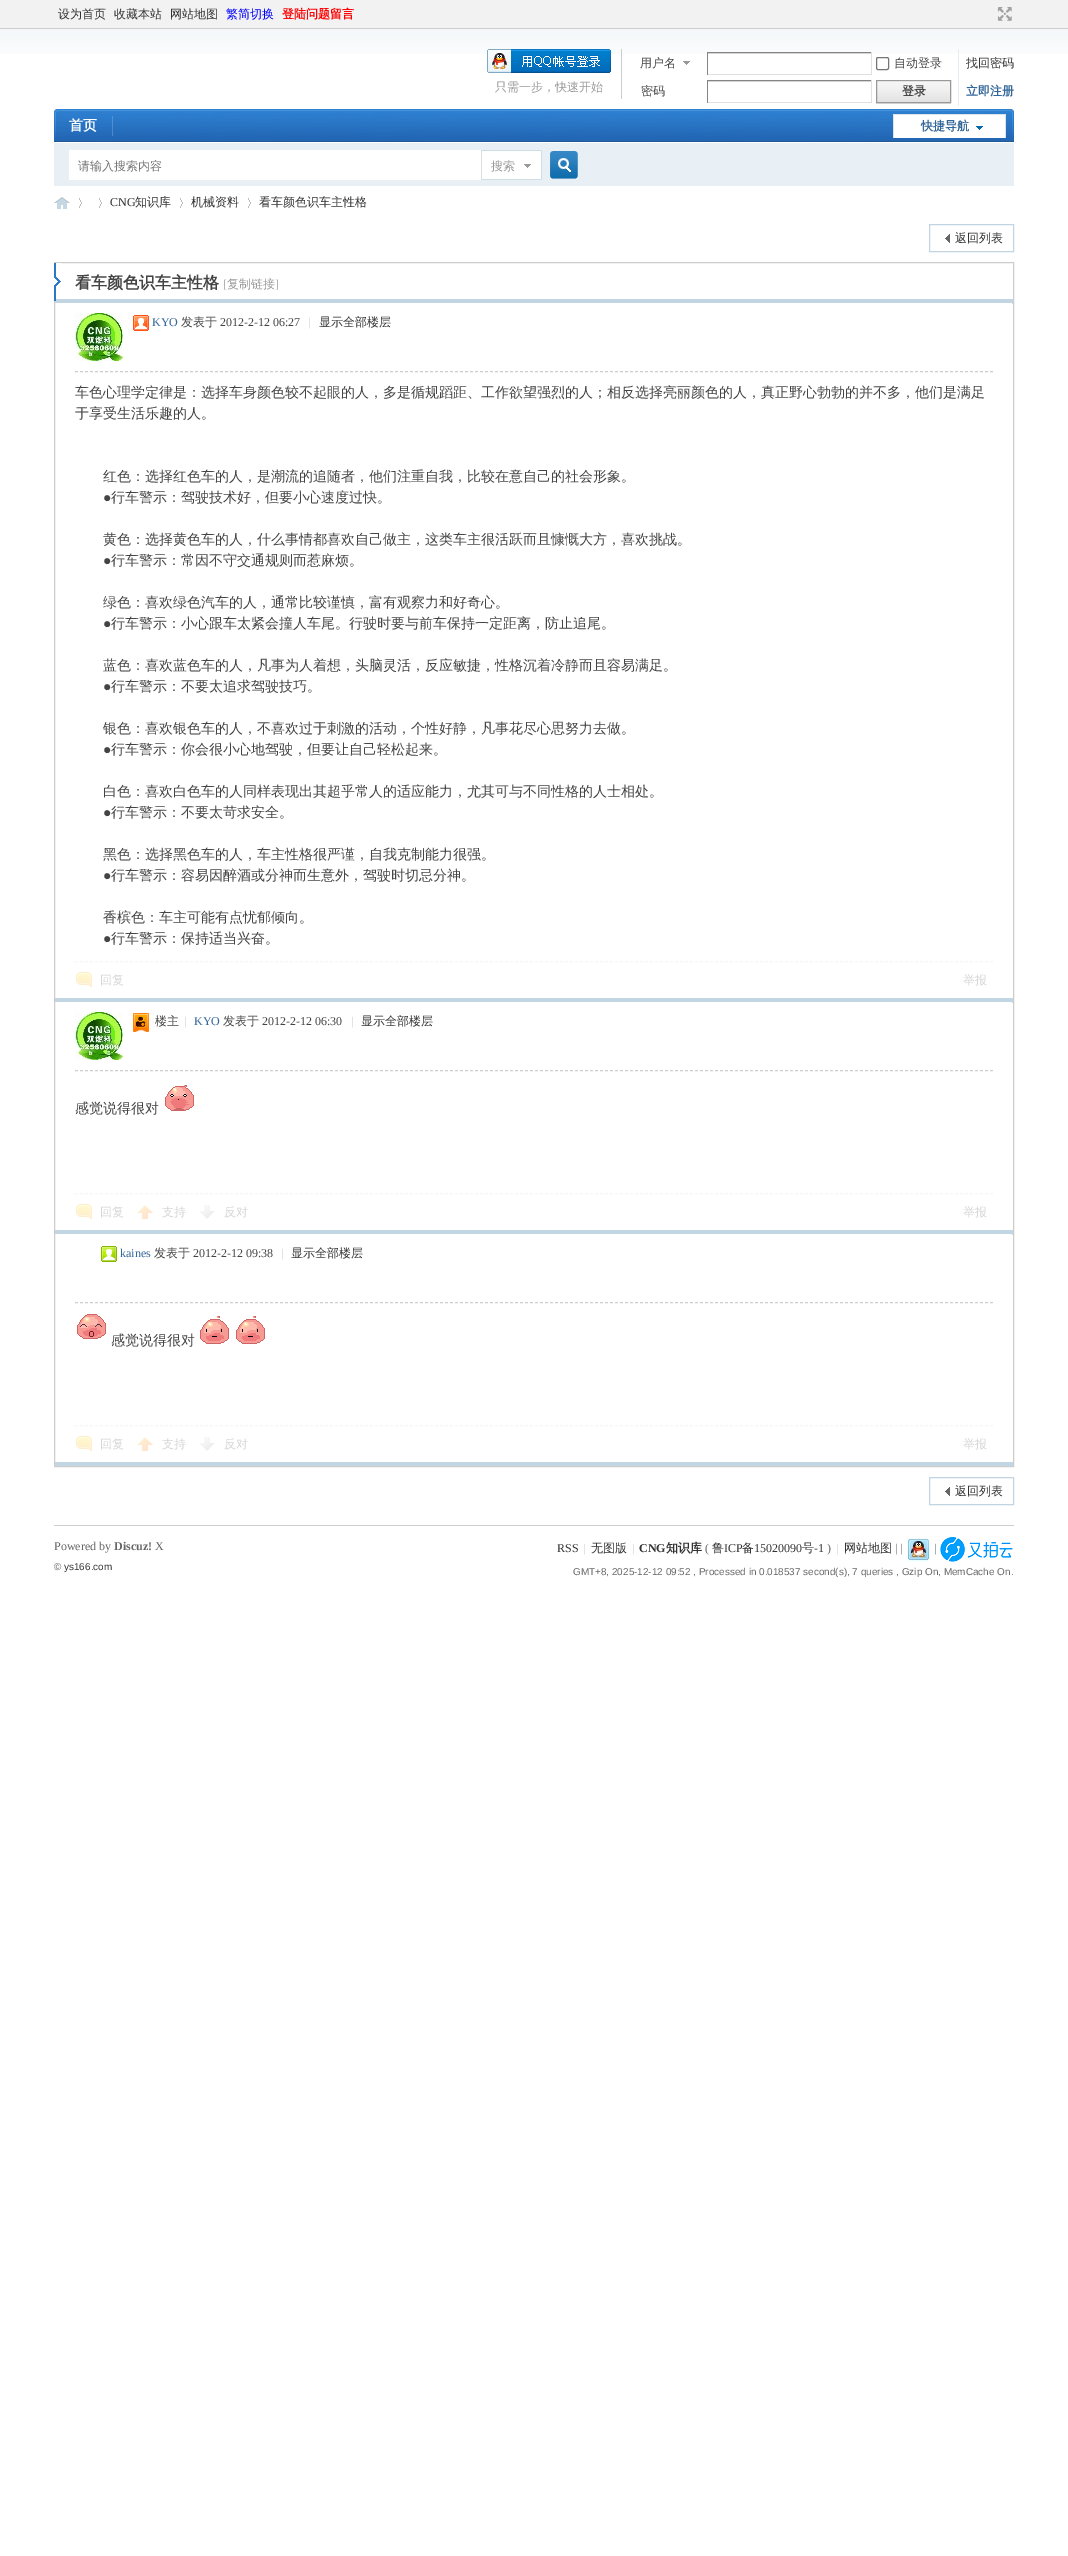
%!PS
<< /PageSize [1068 2556] >> setpagedevice
/roundrect { 5 dict begin { /r /h /w /y /x } { exch def } forall
  x r add y moveto x w add y 2 copy h add r arct x w add y h add x 1 index r arct
  x y h add x y r arct x y 2 copy exch w add exch r arct closepath end } def
/picture { 5 dict begin { /h /w /y /x /name } { exch def } forall
  gsave x y translate w h scale
  w h 8 [w 0 0 h 0 0] name (r) file false 3 colorimage grestore end } def
0 2556 translate 1 -1 scale
4 setmiterlimit
1 setgray
0 0 1068 2556 rectfill
(img1.rgb) 0 29 1068 25 picture
0.949 setgray
0 0 1068 28 rectfill
0.804 setgray
0 28 1068 1 rectfill
/WenQuanYiZenHei-Medium [12 0 0 -12 0 0] selectfont
0.2 setgray
58 18 moveto (设为首页) show
114 18 moveto (收藏本站) show
170 18 moveto (网站地图) show
0 0 1 setrgbcolor
226 18 moveto (繁简切换) show
/WenQuanYiZenHei-Bold [12 0 0 -12 0 0] selectfont
1 0 0 setrgbcolor
282 18 moveto (登陆问题留言) show
(img2.rgb) 997 7 15 14 picture
0.804 setgray
621 49 1 50 rectfill
(img3.rgb) 487 49 124 24 picture
/WenQuanYiZenHei-Medium [12 0 0 -12 0 0] selectfont
0.6 setgray
495 91 moveto (只需一步，快速开始) show
(img4.rgb) 683 61 7 4 picture
0.267 setgray
640 67 moveto (用户名) show
0.831 setgray
707 53 165 1 rectfill
0.518 setgray
707 52 165 1 rectfill
0.878 setgray
871 52 1 23 rectfill
707 74 165 1 rectfill
0.518 setgray
707 52 1 23 rectfill
0.463 setgray
876.5 57.5 12 12 1.5 roundrect stroke
0.267 setgray
894 67 moveto (自动登录) show
0.2 setgray
966 67 moveto (找回密码) show
0.267 setgray
641 95 moveto (密码) show
0.831 setgray
707 81 165 1 rectfill
0.518 setgray
707 80 165 1 rectfill
0.878 setgray
871 80 1 23 rectfill
707 102 165 1 rectfill
0.518 setgray
707 80 1 23 rectfill
0.898 0.929 0.949 setrgbcolor
958 49 1 57 rectfill
0.898 setgray
876 103 75 1 rectfill
(img5.rgb) 877 81 73 21 picture
0.6 setgray
876.5 80.5 74 22 rectstroke
/WenQuanYiZenHei-Bold [12 0 0 -12 0 0] selectfont
0.267 setgray
902 95 moveto (登录) show
0.2 0.4 0.6 setrgbcolor
966 95 moveto (立即注册) show
(img6.rgb) 54 109 960 33 picture
(img7.rgb) 112 116 1 20 picture
/WenQuanYiZenHei-Bold [14 0 0 -14 0 0] selectfont
1 setgray
69 130 moveto (首页) show
(img8.rgb) 893 114 113 24 picture
/WenQuanYiZenHei-Bold [12 0 0 -12 0 0] selectfont
0.2 0.4 0.6 setrgbcolor
921 130 moveto (快捷导航) show
0.91 0.937 0.961 setrgbcolor
54 143 960 43 rectfill
1 setgray
69 150 412 30 rectfill
(img9.rgb) 550 151 28 28 picture
/WenQuanYiZenHei-Medium [12 0 0 -12 0 0] selectfont
0.459 setgray
78 170 moveto (请输入搜索内容) show
(img10.rgb) 481 150 61 30 picture
0.6 setgray
491 170 moveto (搜索) show
(img11.rgb) 54 197 16 12 picture
(img12.rgb) 79 198 3 10 picture
(img12.rgb) 99 198 3 10 picture
/LiberationSerif-Regular [12 0 0 -12 0 0] selectfont
0.2 setgray
110 206 moveto (CNG) show
/WenQuanYiZenHei-Medium [12 0 0 -12 0 0] selectfont
135 206 moveto (知识库) show
(img12.rgb) 180 198 3 10 picture
191 206 moveto (机械资料) show
(img12.rgb) 248 198 3 10 picture
259 206 moveto (看车颜色识车主性格) show
(img13.rgb) 945 234 5 9 picture
0.761 0.835 0.89 setrgbcolor
929.5 224.5 84 27 rectstroke
0.2 setgray
955 242 moveto (返回列表) show
0.804 setgray
54.5 262.5 959 1204 rectstroke
0.761 0.835 0.89 setrgbcolor
1012 299 1 5 rectfill
55 299 958 4 rectfill
(img14.rgb) 54 263 7 38 picture
/WenQuanYiZenHei-Bold [16 0 0 -16 0 0] selectfont
0.267 setgray
75 288 moveto (看车颜色识车主性格) show
/LiberationSerif-Regular [12 0 0 -12 0 0] selectfont
0.6 setgray
223 288 moveto ([) show
/WenQuanYiZenHei-Medium [12 0 0 -12 0 0] selectfont
227 288 moveto (复制链接) show
/LiberationSerif-Regular [12 0 0 -12 0 0] selectfont
275 288 moveto (]) show
0.804 setgray
[3 2] 0 setdash
newpath 75 371.5 moveto 993 371.5 lineto stroke
(img15.rgb) 75 313 48 48 picture
(img16.rgb) 133 315 16 16 picture
0.2 0.4 0.6 setrgbcolor
152 326 moveto (KYO) show
/WenQuanYiZenHei-Medium [12 0 0 -12 0 0] selectfont
0.267 setgray
181 326 moveto (发表于) show
/LiberationSerif-Regular [12 0 0 -12 0 0] selectfont
220 326 moveto (2012-2-12 06:27) show
0.8 setgray
308 326 moveto (|) show
/WenQuanYiZenHei-Medium [12 0 0 -12 0 0] selectfont
0.2 setgray
319 326 moveto (显示全部楼层) show
/WenQuanYiZenHei-Medium [14 0 0 -14 0 0] selectfont
0.267 setgray
75 397 moveto (车色心理学定律是：选择车身颜色较不起眼的人，多是循规蹈距、工作欲望强烈的人；相反选择亮丽颜色的人，真正野心勃勃的并不多，他们是满足) show
75 418 moveto (于享受生活乐趣的人。) show
103 481 moveto (红色：选择红色车的人，是潮流的追随者，他们注重自我，比较在意自己的社会形象。) show
/LiberationSerif-Regular [14 0 0 -14 0 0] selectfont
103 502 moveto (●) show
/WenQuanYiZenHei-Medium [14 0 0 -14 0 0] selectfont
111 502 moveto (行车警示：驾驶技术好，但要小心速度过快。) show
103 544 moveto (黄色：选择黄色车的人，什么事情都喜欢自己做主，这类车主很活跃而且慷慨大方，喜欢挑战。) show
/LiberationSerif-Regular [14 0 0 -14 0 0] selectfont
103 565 moveto (●) show
/WenQuanYiZenHei-Medium [14 0 0 -14 0 0] selectfont
111 565 moveto (行车警示：常因不守交通规则而惹麻烦。) show
103 607 moveto (绿色：喜欢绿色汽车的人，通常比较谨慎，富有观察力和好奇心。) show
/LiberationSerif-Regular [14 0 0 -14 0 0] selectfont
103 628 moveto (●) show
/WenQuanYiZenHei-Medium [14 0 0 -14 0 0] selectfont
111 628 moveto (行车警示：小心跟车太紧会撞人车尾。行驶时要与前车保持一定距离，防止追尾。) show
103 670 moveto (蓝色：喜欢蓝色车的人，凡事为人着想，头脑灵活，反应敏捷，性格沉着冷静而且容易满足。) show
/LiberationSerif-Regular [14 0 0 -14 0 0] selectfont
103 691 moveto (●) show
/WenQuanYiZenHei-Medium [14 0 0 -14 0 0] selectfont
111 691 moveto (行车警示：不要太追求驾驶技巧。) show
103 733 moveto (银色：喜欢银色车的人，不喜欢过于刺激的活动，个性好静，凡事花尽心思努力去做。) show
/LiberationSerif-Regular [14 0 0 -14 0 0] selectfont
103 754 moveto (●) show
/WenQuanYiZenHei-Medium [14 0 0 -14 0 0] selectfont
111 754 moveto (行车警示：你会很小心地驾驶，但要让自己轻松起来。) show
103 796 moveto (白色：喜欢白色车的人同样表现出其超乎常人的适应能力，尤其可与不同性格的人士相处。) show
/LiberationSerif-Regular [14 0 0 -14 0 0] selectfont
103 817 moveto (●) show
/WenQuanYiZenHei-Medium [14 0 0 -14 0 0] selectfont
111 817 moveto (行车警示：不要太苛求安全。) show
103 859 moveto (黑色：选择黑色车的人，车主性格很严谨，自我克制能力很强。) show
/LiberationSerif-Regular [14 0 0 -14 0 0] selectfont
103 880 moveto (●) show
/WenQuanYiZenHei-Medium [14 0 0 -14 0 0] selectfont
111 880 moveto (行车警示：容易因醉酒或分神而生意外，驾驶时切忌分神。) show
103 922 moveto (香槟色：车主可能有点忧郁倾向。) show
/LiberationSerif-Regular [14 0 0 -14 0 0] selectfont
103 943 moveto (●) show
/WenQuanYiZenHei-Medium [14 0 0 -14 0 0] selectfont
111 943 moveto (行车警示：保持适当兴奋。) show
0.961 setgray
newpath 75 961.5 moveto 993 961.5 lineto stroke
(img17.rgb) 76 972 16 15 picture
/WenQuanYiZenHei-Medium [12 0 0 -12 0 0] selectfont
0.839 setgray
100 984 moveto (回复) show
963 984 moveto (举报) show
0.761 0.835 0.89 setrgbcolor
1012 998 1 5 rectfill
55 998 958 4 rectfill
0.804 setgray
newpath 75 1070.5 moveto 993 1070.5 lineto stroke
(img15.rgb) 75 1012 48 48 picture
(img18.rgb) 133 1013 16 19 picture
0.267 setgray
155 1025 moveto (楼主) show
/LiberationSerif-Regular [12 0 0 -12 0 0] selectfont
0.8 setgray
184 1025 moveto (|) show
0.2 0.4 0.6 setrgbcolor
194 1025 moveto (KYO) show
/WenQuanYiZenHei-Medium [12 0 0 -12 0 0] selectfont
0.267 setgray
223 1025 moveto (发表于) show
/LiberationSerif-Regular [12 0 0 -12 0 0] selectfont
262 1025 moveto (2012-2-12 06:30) show
0.8 setgray
351 1025 moveto (|) show
/WenQuanYiZenHei-Medium [12 0 0 -12 0 0] selectfont
0.2 setgray
361 1025 moveto (显示全部楼层) show
/WenQuanYiZenHei-Medium [14 0 0 -14 0 0] selectfont
0.267 setgray
75 1113 moveto (感觉说得很对) show
(img19.rgb) 165 1085 29 26 picture
0.961 setgray
newpath 75 1193.5 moveto 993 1193.5 lineto stroke
(img17.rgb) 76 1204 16 15 picture
/WenQuanYiZenHei-Medium [12 0 0 -12 0 0] selectfont
0.839 setgray
100 1216 moveto (回复) show
(img20.rgb) 137 1205 16 14 picture
162 1216 moveto (支持) show
(img21.rgb) 200 1205 15 14 picture
224 1216 moveto (反对) show
963 1216 moveto (举报) show
0.761 0.835 0.89 setrgbcolor
1012 1230 1 5 rectfill
55 1230 958 4 rectfill
0.804 setgray
newpath 75 1302.5 moveto 993 1302.5 lineto stroke
(img22.rgb) 101 1246 16 16 picture
/LiberationSerif-Regular [12 0 0 -12 0 0] selectfont
0.2 0.4 0.6 setrgbcolor
120 1257 moveto (kaines) show
/WenQuanYiZenHei-Medium [12 0 0 -12 0 0] selectfont
0.267 setgray
154 1257 moveto (发表于) show
/LiberationSerif-Regular [12 0 0 -12 0 0] selectfont
193 1257 moveto (2012-2-12 09:38) show
0.8 setgray
281 1257 moveto (|) show
/WenQuanYiZenHei-Medium [12 0 0 -12 0 0] selectfont
0.2 setgray
291 1257 moveto (显示全部楼层) show
(img23.rgb) 77 1314 29 25 picture
/WenQuanYiZenHei-Medium [14 0 0 -14 0 0] selectfont
0.267 setgray
111 1345 moveto (感觉说得很对) show
(img24.rgb) 200 1316 29 28 picture
(img24.rgb) 236 1316 29 28 picture
0.961 setgray
newpath 75 1425.5 moveto 993 1425.5 lineto stroke
(img17.rgb) 76 1436 16 15 picture
/WenQuanYiZenHei-Medium [12 0 0 -12 0 0] selectfont
0.839 setgray
100 1448 moveto (回复) show
(img20.rgb) 137 1437 16 14 picture
162 1448 moveto (支持) show
(img21.rgb) 200 1437 15 14 picture
224 1448 moveto (反对) show
963 1448 moveto (举报) show
0.761 0.835 0.89 setrgbcolor
1012 1462 1 5 rectfill
55 1462 958 4 rectfill
(img13.rgb) 945 1487 5 9 picture
[] 0 setdash
929.5 1477.5 84 27 rectstroke
0.2 setgray
955 1495 moveto (返回列表) show
0.804 setgray
54 1525 960 1 rectfill
/LiberationSerif-Regular [12 0 0 -12 0 0] selectfont
0.4 setgray
54 1550 moveto (Powered by) show
/LiberationSerif-Bold [12 0 0 -12 0 0] selectfont
114 1550 moveto (Discuz!) show
/LiberationSerif-Regular [12 0 0 -12 0 0] selectfont
155 1550 moveto (X) show
/LiberationSans-Regular [9.95 0 0 -9.95 0 0] selectfont
54 1570 moveto (©) show
0.2 setgray
64 1570 moveto (ys166.com) show
/LiberationSerif-Regular [12 0 0 -12 0 0] selectfont
557 1552 moveto (RSS) show
0.8 setgray
583 1552 moveto (|) show
/WenQuanYiZenHei-Medium [12 0 0 -12 0 0] selectfont
0.2 setgray
591 1552 moveto (无图版) show
/LiberationSerif-Regular [12 0 0 -12 0 0] selectfont
0.8 setgray
632 1552 moveto (|) show
/LiberationSerif-Bold [12 0 0 -12 0 0] selectfont
0.2 setgray
639 1552 moveto (CNG) show
/WenQuanYiZenHei-Bold [12 0 0 -12 0 0] selectfont
666 1552 moveto (知识库) show
/LiberationSerif-Regular [12 0 0 -12 0 0] selectfont
0.4 setgray
705 1552 moveto (\() show
/WenQuanYiZenHei-Medium [12 0 0 -12 0 0] selectfont
0.2 setgray
712 1552 moveto (鲁) show
/LiberationSerif-Regular [12 0 0 -12 0 0] selectfont
724 1552 moveto (ICP) show
/WenQuanYiZenHei-Medium [12 0 0 -12 0 0] selectfont
742 1552 moveto (备) show
/LiberationSerif-Regular [12 0 0 -12 0 0] selectfont
754 1552 moveto (15020090) show
/WenQuanYiZenHei-Medium [12 0 0 -12 0 0] selectfont
802 1552 moveto (号) show
/LiberationSerif-Regular [12 0 0 -12 0 0] selectfont
814 1552 moveto (-1) show
0.4 setgray
827 1552 moveto (\)) show
0.8 setgray
836 1552 moveto (|) show
/WenQuanYiZenHei-Medium [12 0 0 -12 0 0] selectfont
0.2 setgray
844 1552 moveto (网站地图) show
/LiberationSerif-Regular [12 0 0 -12 0 0] selectfont
0.4 setgray
895 1552 moveto (| |) show
(img25.rgb) 907 1538 24 24 picture
934 1552 moveto (|) show
(img26.rgb) 940 1537 73 25 picture
/LiberationSans-Regular [9.95 0 0 -9.95 0 0] selectfont
573 1575 moveto (GMT+8, 2025-12-12 09:52 , Processed in 0.018537 second\(s\), 7 queries , Gzip On, MemCache On.) show
showpage
